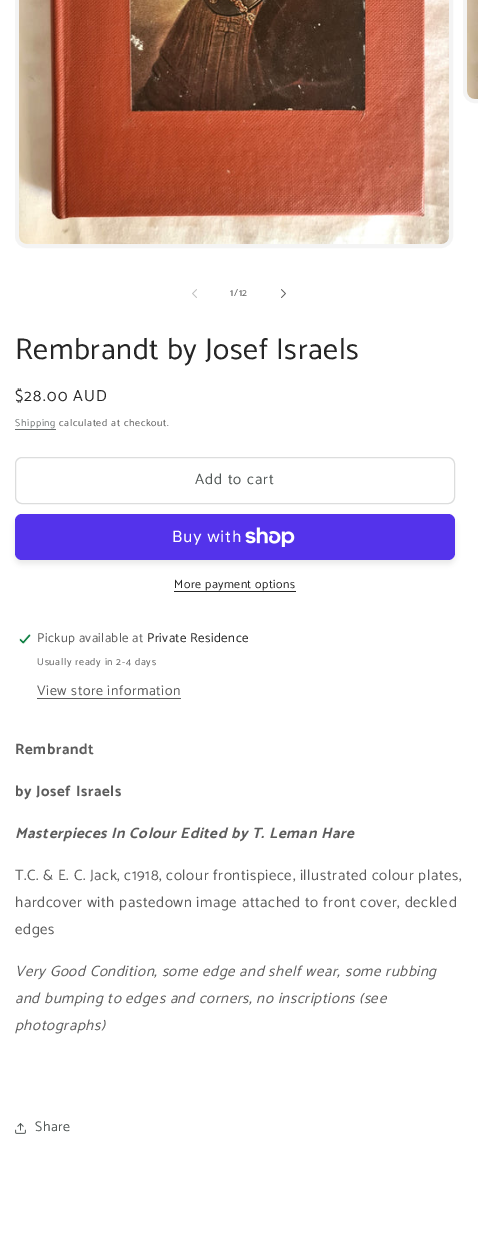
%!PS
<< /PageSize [478 1257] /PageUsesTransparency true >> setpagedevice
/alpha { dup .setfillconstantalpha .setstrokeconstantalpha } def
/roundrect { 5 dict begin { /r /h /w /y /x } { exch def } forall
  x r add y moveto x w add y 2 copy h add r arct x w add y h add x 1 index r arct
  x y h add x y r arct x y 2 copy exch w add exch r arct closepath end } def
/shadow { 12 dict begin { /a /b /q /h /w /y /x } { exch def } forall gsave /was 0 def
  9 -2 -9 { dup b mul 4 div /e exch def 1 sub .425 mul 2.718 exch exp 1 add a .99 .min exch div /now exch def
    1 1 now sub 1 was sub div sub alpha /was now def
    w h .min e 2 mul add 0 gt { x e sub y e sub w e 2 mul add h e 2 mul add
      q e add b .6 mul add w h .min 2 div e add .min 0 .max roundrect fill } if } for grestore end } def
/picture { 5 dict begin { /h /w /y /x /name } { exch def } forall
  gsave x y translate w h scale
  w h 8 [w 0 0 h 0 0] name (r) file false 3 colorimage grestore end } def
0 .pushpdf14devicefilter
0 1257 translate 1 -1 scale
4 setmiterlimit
1 setgray
0 0 478 1257 rectfill
0.957 setgray
4 setlinewidth
17 -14 434 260 10 roundrect stroke
(img1.rgb) 19 0 430 244 picture
465 -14 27 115 10 roundrect stroke
(img2.rgb) 467 0 11 99 picture
(img3.rgb) 192 289 5 9 picture
/Catamaran-Regular [10 0 0 -10 0 0] selectfont
0.361 setgray
230 296 moveto 0.7 0 (1/12) ashow
(img4.rgb) 281 289 5 9 picture
/Catamaran-Regular [30 0 0 -30 0 0] selectfont
0.145 setgray
15 359 moveto 0.6 0 (Rembrandt by Josef Israels) ashow
/Catamaran-Regular [16 0 0 -16 0 0] selectfont
15 401 moveto 1.25 0 ($28.00 AUD) ashow
/Catamaran-Regular [10 0 0 -10 0 0] selectfont
0.416 0.435 0.435 setrgbcolor
15 426 moveto 0.7 0 (Shipping) ashow
15 429 41 1 rectfill
0.361 setgray
59 426 moveto 0.7 0 (calculated at checkout.) ashow
0.863 0.867 0.867 setrgbcolor
1 setlinewidth
15.5 457.5 439 46 6.5 roundrect stroke
/Catamaran-Regular [15 0 0 -15 0 0] selectfont
0.314 0.337 0.333 setrgbcolor
195 484 moveto 1 0 (Add to cart) ashow
0.145 setgray
15 518 440 46 7 2.5 0.1 shadow
0.329 0.2 0.922 setrgbcolor
15 514 440 46 7 roundrect fill
/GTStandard-Regular [16 0 0 -16 0 0] selectfont
1 setgray
172 542 moveto 0.6 0 (Buy with) ashow
(img5.rgb) 245 527 50 20 picture
/Catamaran-Regular [12 0 0 -12 0 0] selectfont
0.145 setgray
174 588 moveto 0.5 0 (More payment options) ashow
174 591 122 1 rectfill
(img6.rgb) 19 634 12 10 picture
/Catamaran-Regular [13 0 0 -13 0 0] selectfont
0.361 setgray
37 642 moveto 0.4 0 (Pickup available at) ashow
0.145 setgray
147 642 moveto 0.4 0 (Private Residence) ashow
/Catamaran-Regular [10 0 0 -10 0 0] selectfont
0.361 setgray
37 665 moveto 0.7 0 (Usually ready in 2-4 days) ashow
/Catamaran-Regular [14 0 0 -14 0 0] selectfont
37 695 moveto 0.6 0 (View store information) ashow
37 698 144 1 rectfill
/Catamaran-Bold [15 0 0 -15 0 0] selectfont
15 754 moveto 0.6 0 (Rembrandt) ashow
15 796 moveto 0.6 0 (by Josef Israels) ashow
/Catamaran-BoldItalic [15 0 0 -15 0 0] selectfont
15 838 moveto 0.6 0 (Masterpieces In Colour Edited by T. Leman Hare) ashow
/Catamaran-Regular [15 0 0 -15 0 0] selectfont
15 880 moveto 0.6 0 (T.C. & E. C. Jack, c1918, colour frontispiece, illustrated colour plates,) ashow
15 907 moveto 0.6 0 (hardcover with pastedown image attached to front cover, deckled) ashow
15 934 moveto 0.6 0 (edges) ashow
/Catamaran-Italic [15 0 0 -15 0 0] selectfont
15 976 moveto 0.6 0 (Very Good Condition, some edge and shelf wear, some rubbing) ashow
15 1003 moveto 0.6 0 (and bumping to edges and corners, no inscriptions \(see) ashow
15 1030 moveto 0.6 0 (photographs\)) ashow
(img7.rgb) 15 1123 11 11 picture
/Catamaran-Regular [14 0 0 -14 0 0] selectfont
0.314 0.337 0.333 setrgbcolor
35 1131 moveto 0.6 0 (Share) ashow
.poppdf14devicefilter showpage
